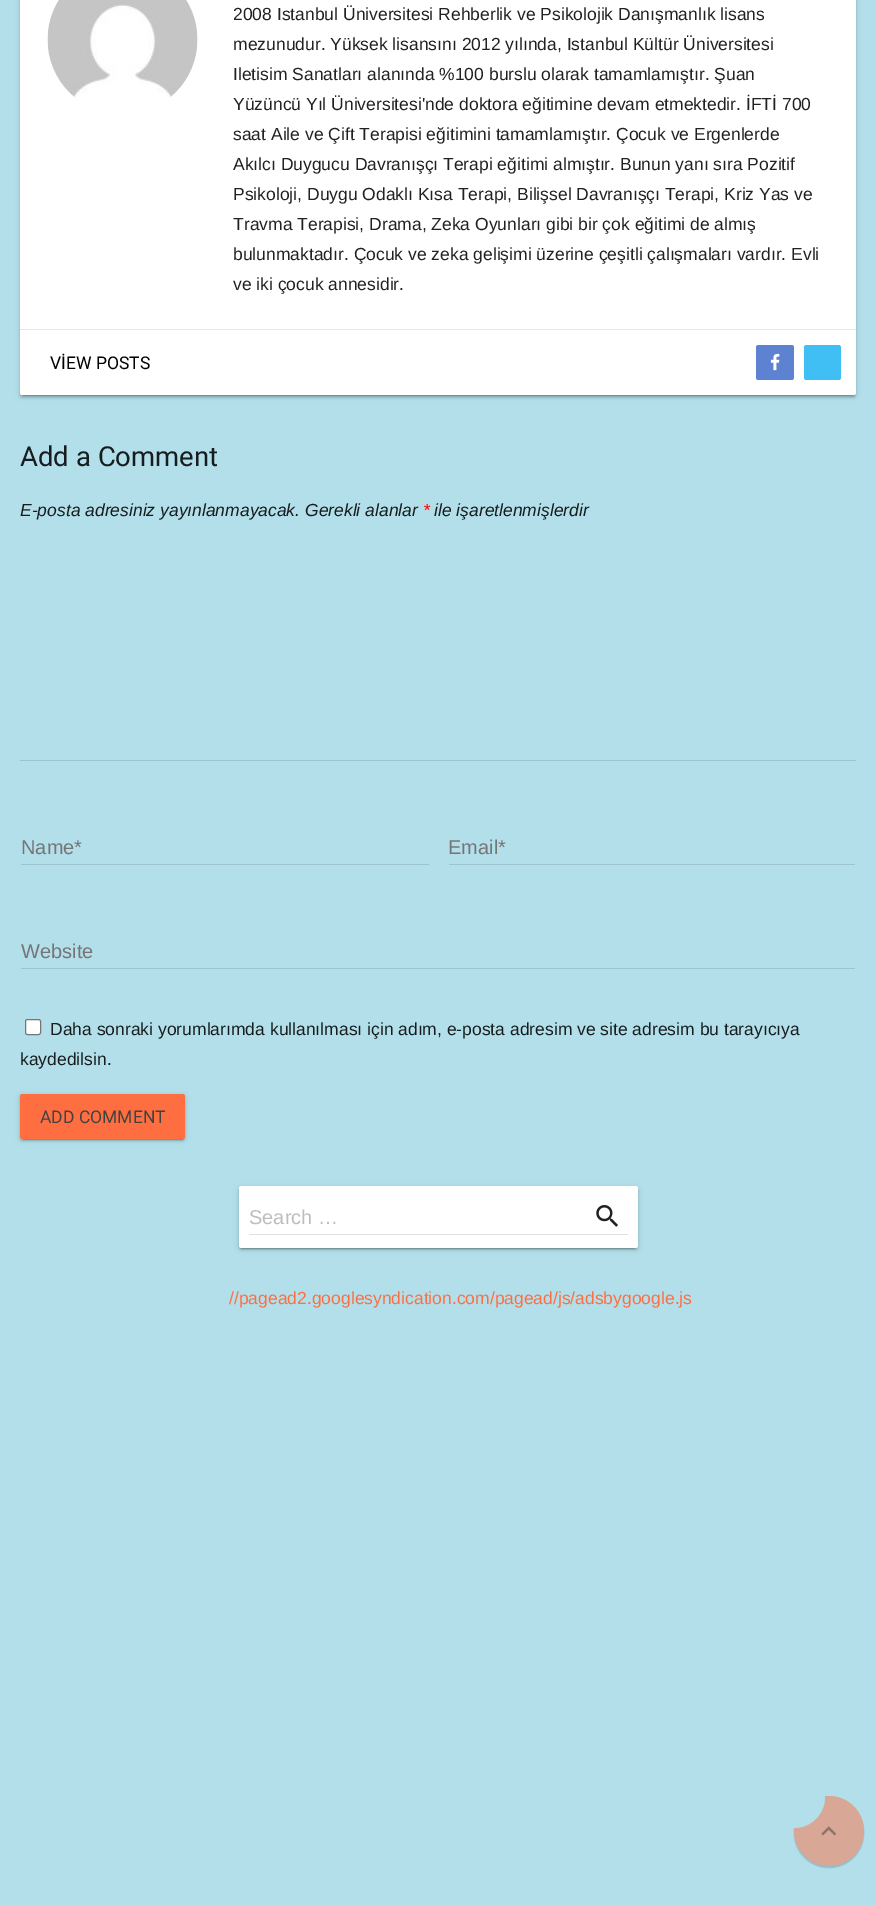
%!PS
<< /PageSize [876 1905] /PageUsesTransparency true >> setpagedevice
/alpha { dup .setfillconstantalpha .setstrokeconstantalpha } def
/roundrect { 5 dict begin { /r /h /w /y /x } { exch def } forall
  x r add y moveto x w add y 2 copy h add r arct x w add y h add x 1 index r arct
  x y h add x y r arct x y 2 copy exch w add exch r arct closepath end } def
/shadow { 12 dict begin { /a /b /q /h /w /y /x } { exch def } forall gsave /was 0 def
  9 -2 -9 { dup b mul 4 div /e exch def 1 sub .425 mul 2.718 exch exp 1 add a .99 .min exch div /now exch def
    1 1 now sub 1 was sub div sub alpha /was now def
    w h .min e 2 mul add 0 gt { x e sub y e sub w e 2 mul add h e 2 mul add
      q e add b .6 mul add w h .min 2 div e add .min 0 .max roundrect fill } if } for grestore end } def
/picture { 5 dict begin { /h /w /y /x /name } { exch def } forall
  gsave x y translate w h scale
  w h 8 [w 0 0 h 0 0] name (r) file false 3 colorimage grestore end } def
0 .pushpdf14devicefilter
0 1905 translate 1 -1 scale
4 setmiterlimit
0.698 0.875 0.918 setrgbcolor
0 0 876 1905 rectfill
0 setgray
20 -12 836 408 2.5 3 0.12 shadow
23 -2 831 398 0 0.5 0.2 shadow
20 -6 836 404 2.5 1 0.14 shadow
1 setgray
20 -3 836 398 2.5 roundrect fill
(img1.rgb) 47 0 151 97 picture
/LiberationSans-Regular [17.5 0 0 -17.5 0 0] selectfont
0.129 setgray
233 20 moveto (2008 Istanbul Üniversitesi Rehberlik ve Psikolojik Danışmanlık lisans) show
233 50 moveto (mezunudur. Yüksek lisansını 2012 yılında, Istanbul Kültür Üniversitesi) show
233 80 moveto (Iletisim Sanatları alanında %100 burslu olarak tamamlamıştır. Şuan) show
233 110 moveto (Yüzüncü Yıl Üniversitesi'nde doktora eğitimine devam etmektedir. İFTİ 700) show
233 140 moveto (saat Aile ve Çift Terapisi eğitimini tamamlamıştır. Çocuk ve Ergenlerde) show
233 170 moveto (Akılcı Duygucu Davranışçı Terapi eğitimi almıştır. Bunun yanı sıra Pozitif) show
233 200 moveto (Psikoloji, Duygu Odaklı Kısa Terapi, Bilişsel Davranışçı Terapi, Kriz Yas ve) show
233 230 moveto (Travma Terapisi, Drama, Zeka Oyunları gibi bir çok eğitimi de almış) show
233 260 moveto (bulunmaktadır. Çocuk ve zeka gelişimi üzerine çeşitli çalışmaları vardır. Evli) show
233 290 moveto (ve iki çocuk annesidir.) show
0.902 setgray
20 329 836 1 rectfill
/Roboto-Regular [17.5 0 0 -17.5 0 0] selectfont
0 setgray
50 369 moveto (VİEW POSTS) show
0.365 0.51 0.82 setrgbcolor
756 345 38 35 2.5 roundrect fill
(img2.rgb) 770 353 10 18 picture
0.251 0.749 0.961 setrgbcolor
804 345 37 35 2.5 roundrect fill
/Roboto-Regular [27.5 0 0 -27.5 0 0] selectfont
0.09 0.114 0.118 setrgbcolor
20 466 moveto (Add a Comment) show
/LiberationSans-Italic [17.5 0 0 -17.5 0 0] selectfont
20 516 moveto (E-posta adresiniz yayınlanmayacak. Gerekli alanlar) show
1 0 0 setrgbcolor
423 516 moveto (*) show
0.09 0.114 0.118 setrgbcolor
434 516 moveto (ile işaretlenmişlerdir) show
0.616 0.769 0.808 setrgbcolor
20 760 836 1 rectfill
21 864 408 1 rectfill
/LiberationSans-Regular [20 0 0 -20 0 0] selectfont
0.459 setgray
21 854 moveto (Name*) show
0.616 0.769 0.808 setrgbcolor
449 864 406 1 rectfill
0.459 setgray
448 854 moveto (Email*) show
0.616 0.769 0.808 setrgbcolor
21 968 834 1 rectfill
0.459 setgray
21 958 moveto (Website) show
1 setgray
25.5 1019.5 15 15 2 roundrect gsave fill grestore
0.463 setgray
stroke
/LiberationSans-Regular [17.5 0 0 -17.5 0 0] selectfont
0.09 0.114 0.118 setrgbcolor
50 1035 moveto (Daha sonraki yorumlarımda kullanılması için adım, e-posta adresim ve site adresim bu tarayıcıya) show
20 1065 moveto (kaydedilsin.) show
0 setgray
20 1095 165 45 2.5 3 0.12 shadow
23 1100 160 40 0 0.5 0.2 shadow
20 1096 165 45 2.5 1 0.14 shadow
1 0.431 0.251 setrgbcolor
20 1094 165 45 2.5 roundrect fill
/Roboto-Regular [17.5 0 0 -17.5 0 0] selectfont
0.259 setgray
40 1123 moveto (ADD COMMENT) show
0 setgray
239 1188 399 61 2.5 3 0.12 shadow
241 1193 394 56 0 0.5 0.2 shadow
239 1189 399 61 2.5 1 0.14 shadow
1 setgray
239 1186 399 62 2.5 roundrect fill
/LiberationSans-Regular [20 0 0 -20 0 0] selectfont
0.741 setgray
249 1224 moveto (Search …) show
(img3.rgb) 596 1205 22 22 picture
0.878 setgray
249 1234 379 1 rectfill
/LiberationSans-Regular [17.5 0 0 -17.5 0 0] selectfont
1 0.431 0.251 setrgbcolor
229 1304 moveto (//pagead2.googlesyndication.com/pagead/js/adsbygoogle.js) show
0.349 0.439 0.459 setrgbcolor
794 1798 70 70 35 0.5 0.24 shadow
794 1798 70 70 35 1 0.12 shadow
0.851 0.655 0.584 setrgbcolor
newpath 829 1831 35 0 360 arc closepath fill
(img4.rgb) 821 1826 16 10 picture
gsave
794 1796 70 70 35 roundrect clip newpath
794 1796 70 70 35 roundrect clip newpath
0.698 0.875 0.918 setrgbcolor
newpath 794 1796 moveto 825 1796 lineto 825 1797 lineto 825 1814 811 1828 794 1828 curveto closepath fill
grestore
.poppdf14devicefilter showpage
